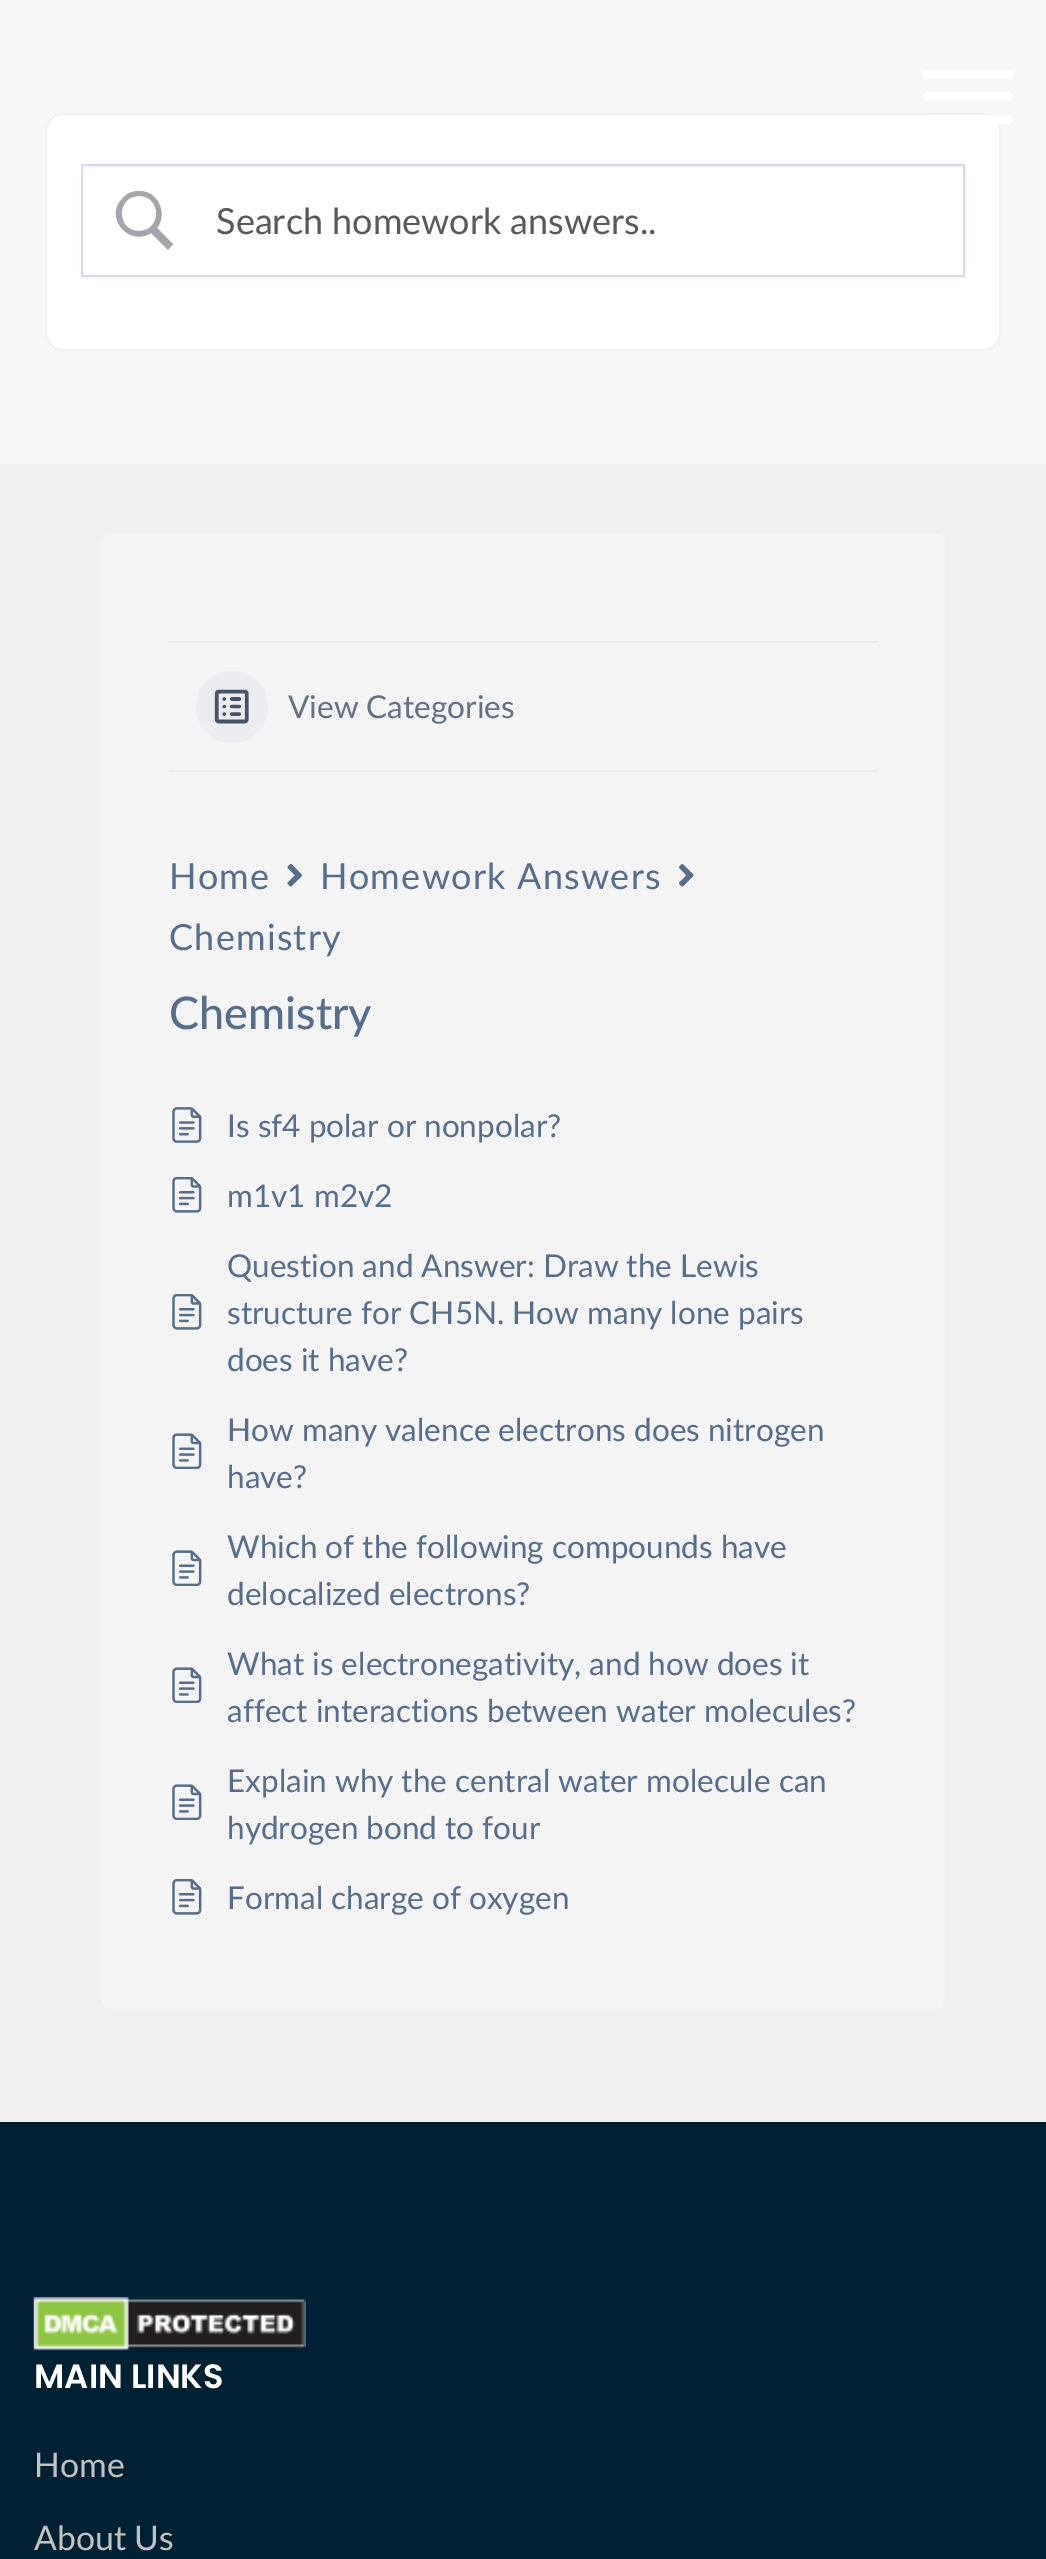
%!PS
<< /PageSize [1046 2559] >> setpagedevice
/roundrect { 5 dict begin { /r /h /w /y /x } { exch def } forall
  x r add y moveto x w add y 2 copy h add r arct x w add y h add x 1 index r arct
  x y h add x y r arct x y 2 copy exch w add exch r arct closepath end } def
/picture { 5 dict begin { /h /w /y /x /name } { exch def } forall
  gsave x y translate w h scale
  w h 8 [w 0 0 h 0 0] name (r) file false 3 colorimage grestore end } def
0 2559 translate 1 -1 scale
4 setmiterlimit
0.937 setgray
0 0 1046 2559 rectfill
0.969 setgray
0 0 1046 464 rectfill
1 setgray
923 70 90 9 4.5 roundrect fill
923 92 90 9 4.5 roundrect fill
46 114 954 236 17 roundrect gsave fill grestore
0.945 setgray
2 setlinewidth
stroke
1 setgray
923 115 90 9 4.5 roundrect fill
0.827 0.851 0.937 setrgbcolor
82 165 882 111 rectstroke
0.635 0.647 0.667 setrgbcolor
newpath 139 191 moveto 133 191 127 193 123 198 curveto 103 217 129 247 151 233 curveto 168 250 lineto 173 244 lineto 157 228 lineto 168 213 158 191 139 191 curveto closepath 139 196 moveto 162 196 162 231 139 231 curveto 116 231 116 196 139 196 curveto closepath fill
/Lato-Regular [36 0 0 -36 0 0] selectfont
0.349 setgray
216 234 moveto (Search homework answers..) show
0.957 setgray
101 533 844 1476 11 roundrect fill
0.918 0.925 0.941 setrgbcolor
169 641 709 2 rectfill
169 770 709 2 rectfill
newpath 232 707 36 0 360 arc closepath fill
(img1.rgb) 214 689 35 35 picture
/Lato-Regular [31.5 0 0 -31.5 0 0] selectfont
0.4 0.439 0.522 setrgbcolor
288 718 moveto (View Categories) show
/Lato-Regular [36 0 0 -36 0 0] selectfont
0.337 0.431 0.545 setrgbcolor
169 889 moveto 1.25 0 (Home) ashow
(img2.rgb) 287 864 15 23 picture
320 889 moveto 1.25 0 (Homework Answers) ashow
(img3.rgb) 679 864 15 23 picture
169 950 moveto 1.25 0 (Chemistry) ashow
/Lato-Medium [45 0 0 -45 0 0] selectfont
169 1029 moveto (Chemistry) show
(img4.rgb) 172 1107 30 36 picture
/Lato-Regular [31.5 0 0 -31.5 0 0] selectfont
227 1137 moveto (Is sf4 polar or nonpolar?) show
(img5.rgb) 172 1177 30 36 picture
227 1207 moveto (m1v1 m2v2) show
(img5.rgb) 172 1294 30 36 picture
227 1277 moveto (Question and Answer: Draw the Lewis) show
227 1324 moveto (structure for CH5N. How many lone pairs) show
227 1371 moveto (does it have?) show
(img6.rgb) 172 1433 30 36 picture
227 1441 moveto (How many valence electrons does nitrogen) show
227 1488 moveto (have?) show
(img6.rgb) 172 1550 30 36 picture
227 1558 moveto (Which of the following compounds have) show
227 1605 moveto (delocalized electrons?) show
(img6.rgb) 172 1667 30 36 picture
227 1675 moveto (What is electronegativity, and how does it) show
227 1722 moveto (affect interactions between water molecules?) show
(img6.rgb) 172 1784 30 36 picture
227 1792 moveto (Explain why the central water molecule can) show
227 1839 moveto (hydrogen bond to four) show
(img5.rgb) 172 1879 30 36 picture
227 1909 moveto (Formal charge of oxygen) show
0 0.125 0.204 setrgbcolor
0 2122 1046 437 rectfill
(img7.rgb) 33 2297 273 54 picture
/Poppins-SemiBold [33.75 0 0 -33.75 0 0] selectfont
1 setgray
34 2388 moveto (MAIN LINKS) show
/Lato-Regular [33.75 0 0 -33.75 0 0] selectfont
0.765 setgray
34 2477 moveto (Home) show
34 2550 moveto (About Us) show
showpage
